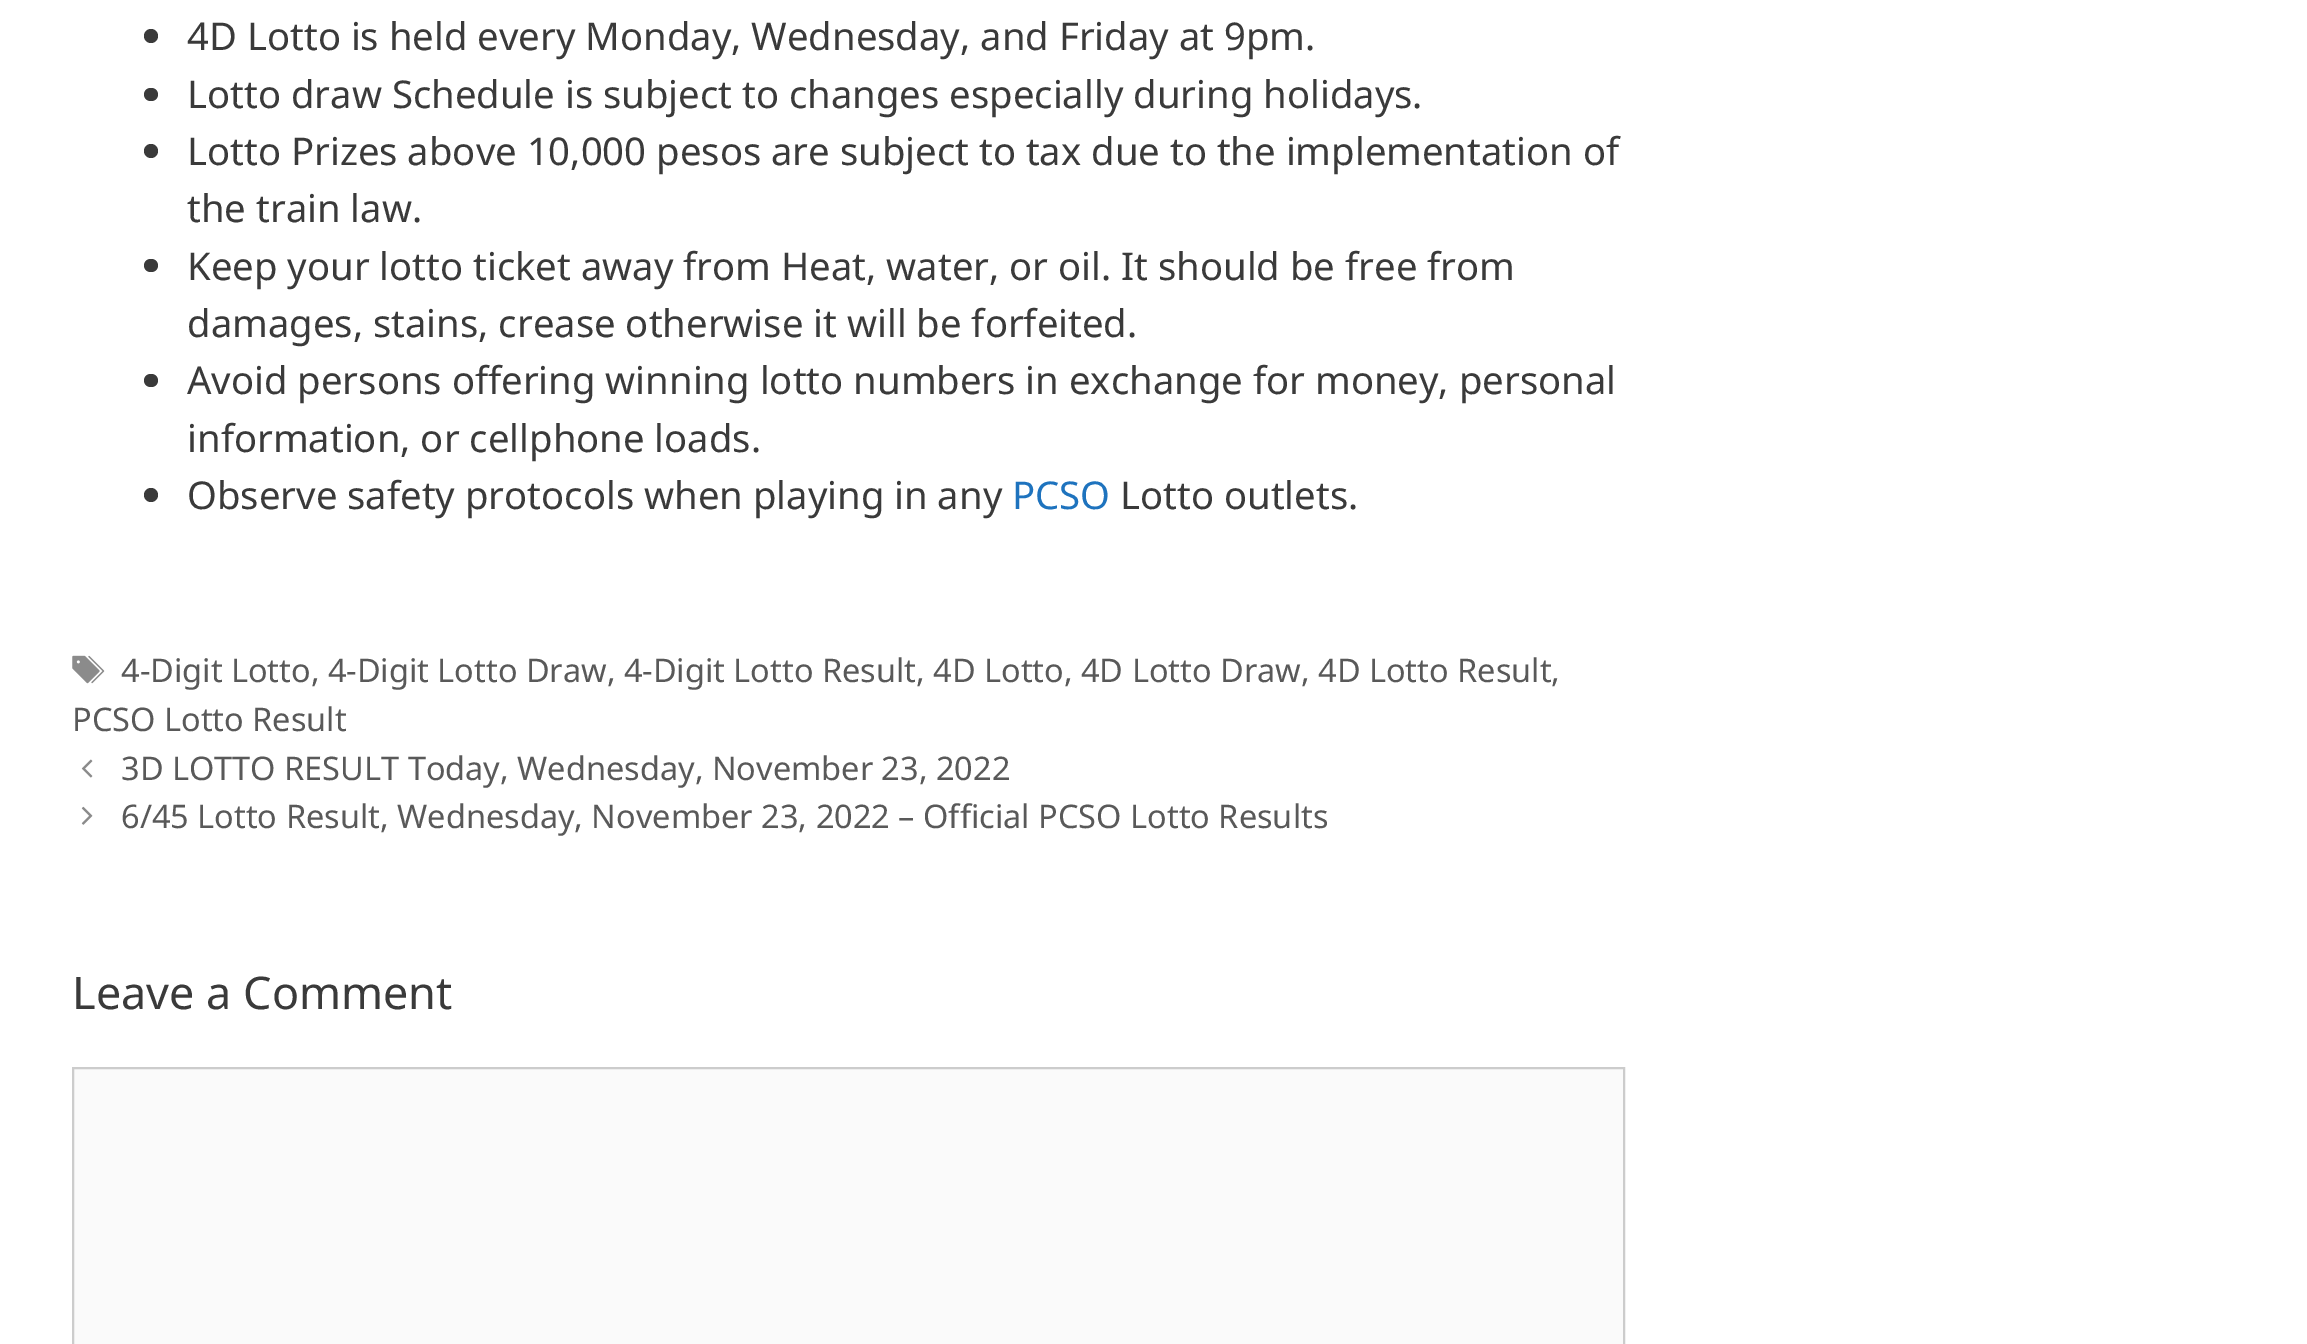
%!PS
<< /PageSize [2307 1344] >> setpagedevice
/roundrect { 5 dict begin { /r /h /w /y /x } { exch def } forall
  x r add y moveto x w add y 2 copy h add r arct x w add y h add x 1 index r arct
  x y h add x y r arct x y 2 copy exch w add exch r arct closepath end } def
/picture { 5 dict begin { /h /w /y /x /name } { exch def } forall
  gsave x y translate w h scale
  w h 8 [w 0 0 h 0 0] name (r) file false 3 colorimage grestore end } def
0 1344 translate 1 -1 scale
4 setmiterlimit
1 setgray
0 0 2307 1344 rectfill
0.227 setgray
newpath 151 36 7 0 360 arc closepath fill
/NotoSans-Regular [38.25 0 0 -38.25 0 0] selectfont
187 50 moveto (4D Lotto is held every Monday, Wednesday, and Friday at 9pm.) show
144 88 14 13 6.5 roundrect fill
187 108 moveto (Lotto draw Schedule is subject to changes especially during holidays.) show
newpath 151 151 7 0 360 arc closepath fill
187 165 moveto (Lotto Prizes above 10,000 pesos are subject to tax due to the implementation of) show
187 222 moveto (the train law.) show
144 259 14 13 6.5 roundrect fill
187 280 moveto (Keep your lotto ticket away from Heat, water, or oil. It should be free from) show
187 337 moveto (damages, stains, crease otherwise it will be forfeited.) show
144 374 14 13 6.5 roundrect fill
187 394 moveto (Avoid persons offering winning lotto numbers in exchange for money, personal) show
187 452 moveto (information, or cellphone loads.) show
newpath 151 495 7 0 360 arc closepath fill
187 509 moveto (Observe safety protocols when playing in any) show
0.118 0.451 0.745 setrgbcolor
1012 509 moveto (PCSO) show
0.227 setgray
1120 509 moveto (Lotto outlets.) show
(img1.rgb) 72 655 33 29 picture
/NotoSans-Regular [32.5 0 0 -32.5 0 0] selectfont
0.349 setgray
121 682 moveto (4-Digit Lotto, 4-Digit Lotto Draw, 4-Digit Lotto Result, 4D Lotto, 4D Lotto Draw, 4D Lotto Result,) show
72 731 moveto (PCSO Lotto Result) show
(img2.rgb) 81 759 12 19 picture
121 780 moveto (3D LOTTO RESULT Today, Wednesday, November 23, 2022) show
(img3.rgb) 81 806 12 19 picture
121 828 moveto (6/45 Lotto Result, Wednesday, November 23, 2022 – Official PCSO Lotto Results) show
/NotoSans-Regular [45 0 0 -45 0 0] selectfont
0.227 setgray
72 1009 moveto (Leave a Comment) show
0.98 setgray
newpath 73 1068 moveto 1624 1068 lineto 1624 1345 lineto 73 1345 lineto closepath gsave fill grestore
0.8 setgray
2 setlinewidth
stroke
showpage
